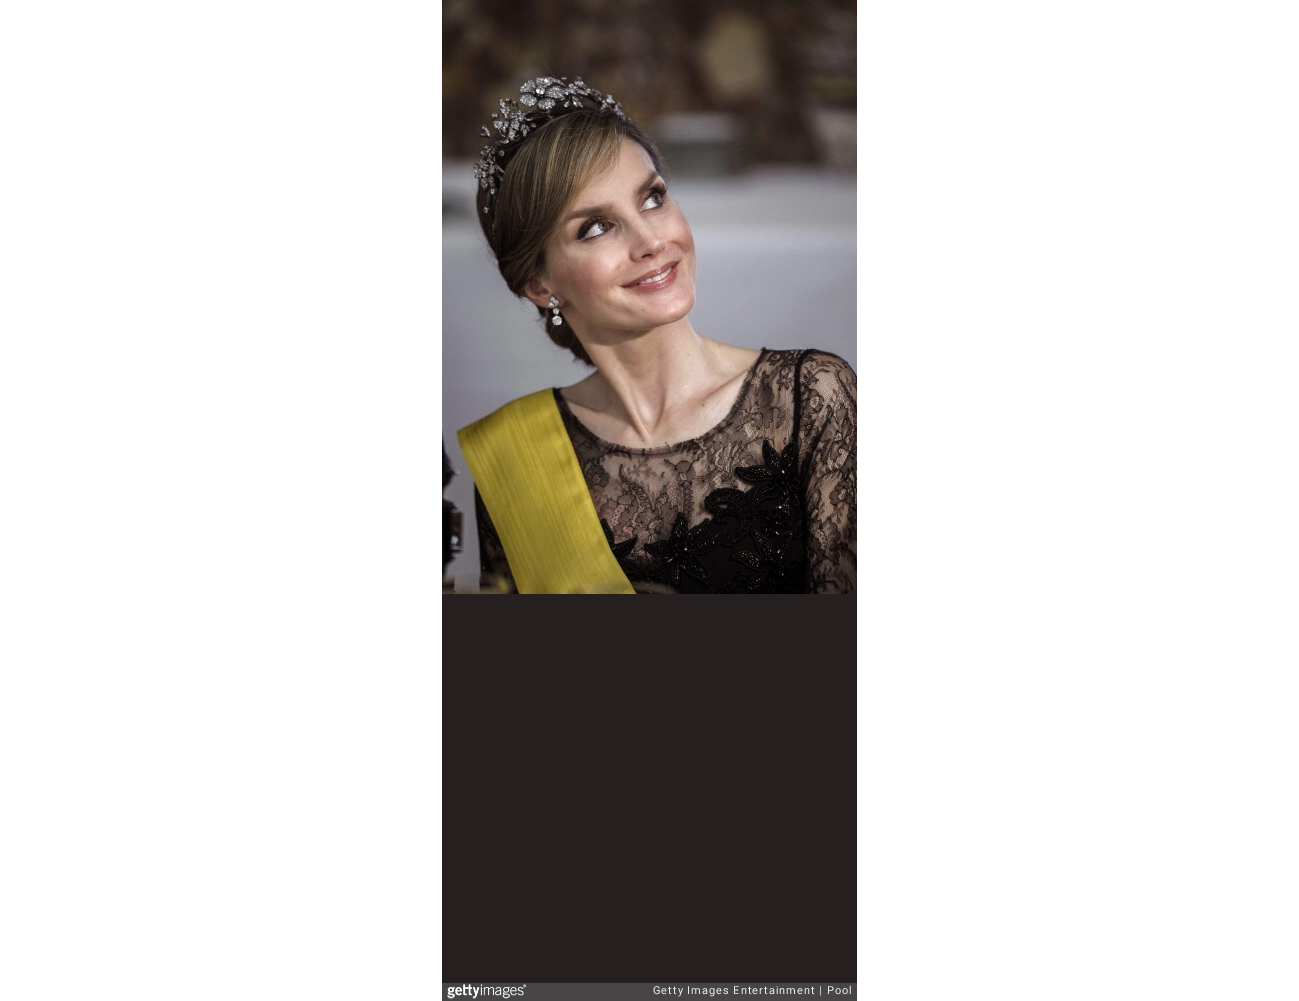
%!PS
<< /PageSize [1299 1001] >> setpagedevice
/picture { 5 dict begin { /h /w /y /x /name } { exch def } forall
  gsave x y translate w h scale
  w h 8 [w 0 0 h 0 0] name (r) file false 3 colorimage grestore end } def
0 1001 translate 1 -1 scale
4 setmiterlimit
1 setgray
0 0 1299 1001 rectfill
0.145 0.122 0.125 setrgbcolor
442 594 415 389 rectfill
(img1.rgb) 442 0 415 594 picture
0.278 0.271 0.271 setrgbcolor
442 983 415 18 rectfill
(img2.rgb) 447 984 80 15 picture
/Roboto-Regular [11 0 0 -11 0 0] selectfont
0.933 setgray
653 994 moveto 1 0 (Getty Images Entertainment | Pool) ashow
showpage
